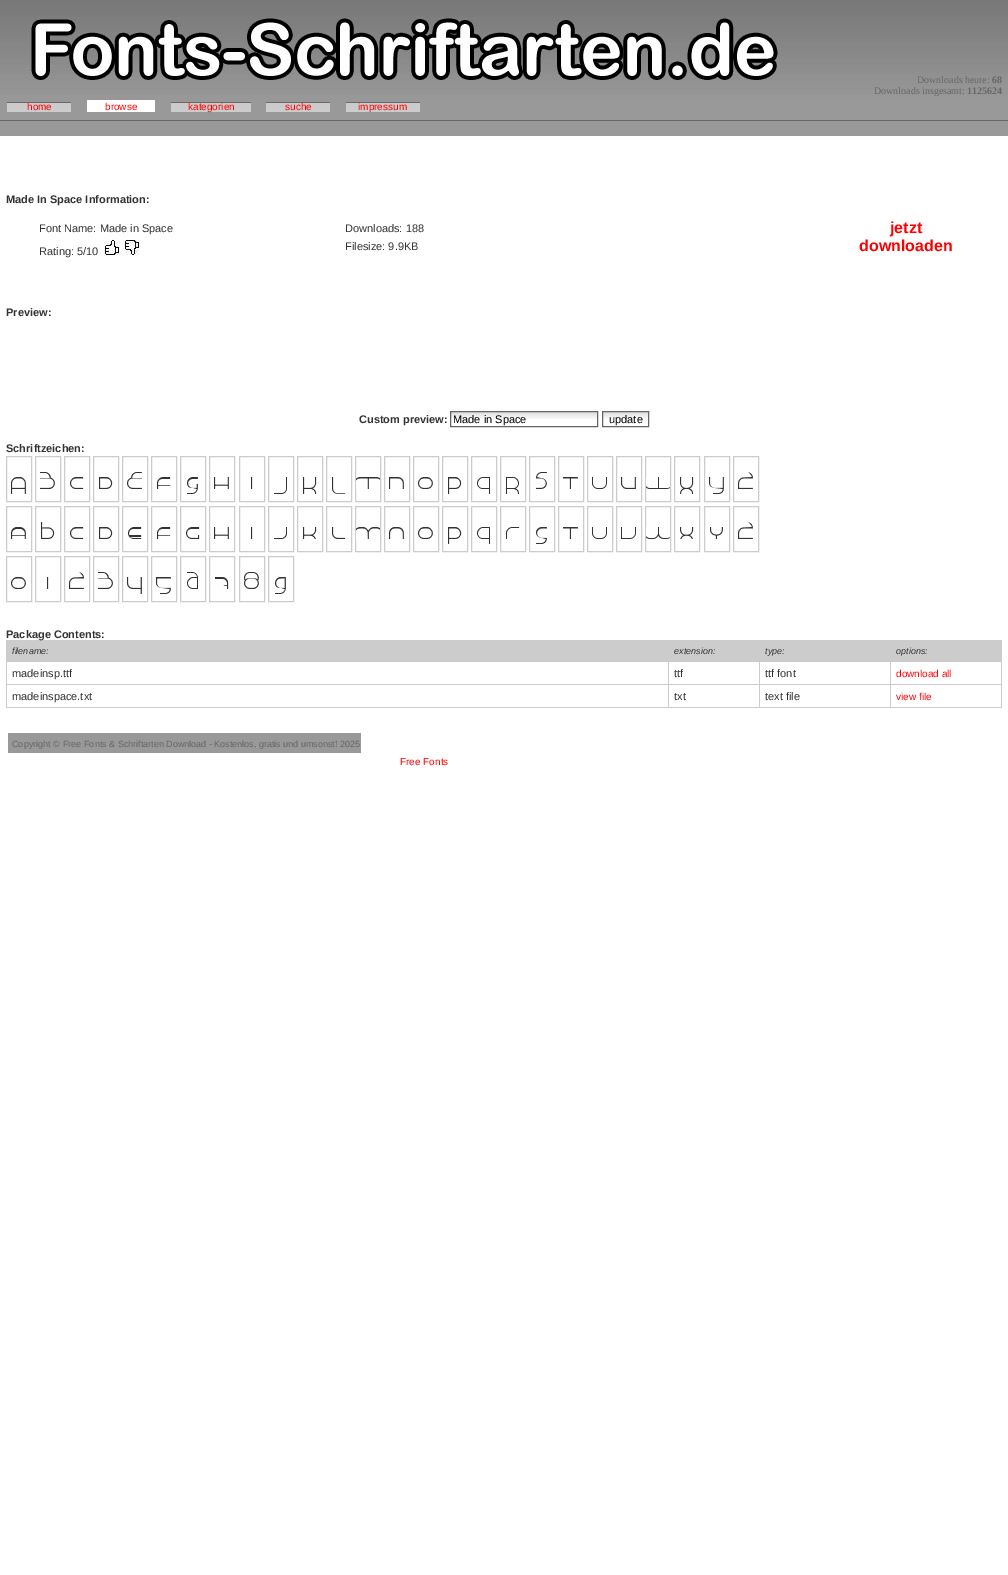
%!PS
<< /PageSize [1008 1575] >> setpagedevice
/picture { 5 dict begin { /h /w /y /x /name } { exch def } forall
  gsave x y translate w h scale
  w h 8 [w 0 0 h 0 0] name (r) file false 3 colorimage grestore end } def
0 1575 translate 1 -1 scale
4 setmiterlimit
1 setgray
0 0 1008 1575 rectfill
(img1.rgb) 0 0 1008 100 picture
/LiberationSerif-Regular [10 0 0 -10 0 0] selectfont
0.4 setgray
917 83 moveto (Downloads heute:) show
/LiberationSerif-Bold [10 0 0 -10 0 0] selectfont
992 83 moveto (68) show
/LiberationSerif-Regular [10 0 0 -10 0 0] selectfont
874 94 moveto (Downloads insgesamt:) show
/LiberationSerif-Bold [10 0 0 -10 0 0] selectfont
967 94 moveto (1125624) show
(img2.rgb) 0 100 1008 36 picture
(img3.rgb) 7 102 64 10 picture
/LiberationSans-Regular [10 0 0 -10 0 0] selectfont
1 0 0 setrgbcolor
27 110 moveto (home) show
1 setgray
87 100 68 12 rectfill
1 0 0 setrgbcolor
105 110 moveto (browse) show
(img4.rgb) 171 102 80 10 picture
188 110 moveto (kategorien) show
(img3.rgb) 266 102 64 10 picture
285 110 moveto (suche) show
(img5.rgb) 346 102 74 10 picture
358 110 moveto (impressum) show
/LiberationSans-Bold [11 0 0 -11 0 0] selectfont
0.2 setgray
6 203 moveto (Made In Space Information:) show
/LiberationSans-Regular [11 0 0 -11 0 0] selectfont
39 232 moveto (Font Name: Made in Space) show
345 232 moveto (Downloads: 188) show
39 255 moveto (Rating: 5/10) show
(img6.rgb) 104 240 16 15 picture
(img7.rgb) 124 240 16 15 picture
345 250 moveto (Filesize: 9.9KB) show
/LiberationSans-Bold [16 0 0 -16 0 0] selectfont
1 0 0 setrgbcolor
890 233 moveto (jetzt) show
859 251 moveto (downloaden) show
/LiberationSans-Bold [11 0 0 -11 0 0] selectfont
0.2 setgray
6 316 moveto (Preview:) show
359 423 moveto (Custom preview:) show
(img8.rgb) 451 412 146 7 picture
0.4 setgray
450.5 411.5 147 15 rectstroke
/LiberationSans-Regular [11 0 0 -11 0 0] selectfont
0 setgray
453 423 moveto (Made in Space) show
(img9.rgb) 603 412 45 7 picture
0.4 setgray
602.5 411.5 46 15 rectstroke
0 setgray
609 423 moveto (update) show
/LiberationSans-Bold [11 0 0 -11 0 0] selectfont
0.2 setgray
6 452 moveto (Schriftzeichen:) show
0.8 setgray
6.5 456.5 25 45 rectstroke
35.5 456.5 25 45 rectstroke
64.5 456.5 25 45 rectstroke
93.5 456.5 25 45 rectstroke
122.5 456.5 25 45 rectstroke
151.5 456.5 25 45 rectstroke
180.5 456.5 25 45 rectstroke
209.5 456.5 25 45 rectstroke
239.5 456.5 25 45 rectstroke
268.5 456.5 25 45 rectstroke
297.5 456.5 25 45 rectstroke
326.5 456.5 25 45 rectstroke
355.5 456.5 25 45 rectstroke
384.5 456.5 25 45 rectstroke
413.5 456.5 25 45 rectstroke
442.5 456.5 25 45 rectstroke
471.5 456.5 25 45 rectstroke
500.5 456.5 25 45 rectstroke
529.5 456.5 25 45 rectstroke
558.5 456.5 25 45 rectstroke
587.5 456.5 25 45 rectstroke
616.5 456.5 25 45 rectstroke
645.5 456.5 25 45 rectstroke
674.5 456.5 25 45 rectstroke
704.5 456.5 25 45 rectstroke
733.5 456.5 25 45 rectstroke
(img10.rgb) 11 477 15 17 picture
(img11.rgb) 40 472 15 17 picture
(img12.rgb) 70 477 14 12 picture
(img13.rgb) 99 477 14 12 picture
(img14.rgb) 127 472 15 17 picture
(img15.rgb) 157 477 14 12 picture
(img16.rgb) 187 477 11 17 picture
(img17.rgb) 214 477 15 12 picture
(img18.rgb) 251 477 2 12 picture
(img19.rgb) 274 477 13 17 picture
(img20.rgb) 303 477 14 17 picture
(img21.rgb) 332 477 14 17 picture
(img22.rgb) 356 477 24 12 picture
(img23.rgb) 389 477 15 12 picture
(img24.rgb) 418 477 15 12 picture
(img25.rgb) 448 477 14 17 picture
(img26.rgb) 477 477 13 17 picture
(img27.rgb) 506 477 13 17 picture
(img28.rgb) 536 472 11 17 picture
(img29.rgb) 563 477 15 12 picture
(img30.rgb) 592 477 15 12 picture
(img31.rgb) 621 477 15 12 picture
(img32.rgb) 646 477 24 12 picture
(img33.rgb) 680 477 14 17 picture
(img34.rgb) 709 477 15 17 picture
(img35.rgb) 738 472 15 17 picture
6.5 506.5 25 45 rectstroke
35.5 506.5 25 45 rectstroke
64.5 506.5 25 45 rectstroke
93.5 506.5 25 45 rectstroke
122.5 506.5 25 45 rectstroke
151.5 506.5 25 45 rectstroke
180.5 506.5 25 45 rectstroke
209.5 506.5 25 45 rectstroke
239.5 506.5 25 45 rectstroke
268.5 506.5 25 45 rectstroke
297.5 506.5 25 45 rectstroke
326.5 506.5 25 45 rectstroke
355.5 506.5 25 45 rectstroke
384.5 506.5 25 45 rectstroke
413.5 506.5 25 45 rectstroke
442.5 506.5 25 45 rectstroke
471.5 506.5 25 45 rectstroke
500.5 506.5 25 45 rectstroke
529.5 506.5 25 45 rectstroke
558.5 506.5 25 45 rectstroke
587.5 506.5 25 45 rectstroke
616.5 506.5 25 45 rectstroke
645.5 506.5 25 45 rectstroke
674.5 506.5 25 45 rectstroke
704.5 506.5 25 45 rectstroke
733.5 506.5 25 45 rectstroke
(img36.rgb) 11 527 15 12 picture
(img37.rgb) 41 522 14 17 picture
(img38.rgb) 70 527 14 12 picture
(img13.rgb) 99 527 14 12 picture
(img39.rgb) 128 527 14 12 picture
(img15.rgb) 157 527 14 12 picture
(img40.rgb) 186 527 14 12 picture
(img17.rgb) 214 527 15 12 picture
(img18.rgb) 251 527 2 12 picture
(img41.rgb) 274 527 13 12 picture
(img42.rgb) 303 527 14 12 picture
(img43.rgb) 332 527 14 12 picture
(img44.rgb) 356 527 24 12 picture
(img45.rgb) 389 527 15 12 picture
(img24.rgb) 418 527 15 12 picture
(img25.rgb) 448 527 14 17 picture
(img26.rgb) 477 527 13 17 picture
(img46.rgb) 506 527 14 12 picture
(img47.rgb) 536 527 11 17 picture
(img29.rgb) 563 527 15 12 picture
(img30.rgb) 592 527 15 12 picture
(img48.rgb) 621 527 15 12 picture
(img49.rgb) 646 527 24 12 picture
(img50.rgb) 680 527 14 12 picture
(img51.rgb) 710 527 13 12 picture
(img52.rgb) 738 522 15 17 picture
6.5 556.5 25 45 rectstroke
35.5 556.5 25 45 rectstroke
64.5 556.5 25 45 rectstroke
93.5 556.5 25 45 rectstroke
122.5 556.5 25 45 rectstroke
151.5 556.5 25 45 rectstroke
180.5 556.5 25 45 rectstroke
209.5 556.5 25 45 rectstroke
239.5 556.5 25 45 rectstroke
268.5 556.5 25 45 rectstroke
(img53.rgb) 11 577 15 12 picture
(img18.rgb) 47 577 2 12 picture
(img35.rgb) 69 572 15 17 picture
(img54.rgb) 98 572 15 17 picture
(img55.rgb) 127 577 15 17 picture
(img56.rgb) 156 577 15 17 picture
(img57.rgb) 187 572 11 17 picture
(img58.rgb) 215 577 14 12 picture
(img59.rgb) 244 572 15 17 picture
(img60.rgb) 275 577 11 17 picture
6 640 996 22 rectfill
0.2 setgray
6 638 moveto (Package Contents:) show
/LiberationSans-Italic [9 0 0 -9 0 0] selectfont
12 654 moveto (filename:) show
674 654 moveto (extension:) show
765 654 moveto (type:) show
896 654 moveto (options:) show
0.8 setgray
6 684 884 1 rectfill
6 662 1 23 rectfill
/LiberationSans-Regular [11 0 0 -11 0 0] selectfont
0.2 setgray
12 677 moveto (madeinsp.ttf) show
0.8 setgray
668 662 1 23 rectfill
0.2 setgray
674 677 moveto (ttf) show
0.8 setgray
759 662 1 23 rectfill
0.2 setgray
765 677 moveto (ttf font) show
0.8 setgray
1001 662 1 46 rectfill
890 684 112 1 rectfill
890 662 1 23 rectfill
/LiberationSans-Regular [10 0 0 -10 0 0] selectfont
1 0 0 setrgbcolor
896 677 moveto (download all) show
0.8 setgray
6 707 996 1 rectfill
6 685 1 23 rectfill
/LiberationSans-Regular [11 0 0 -11 0 0] selectfont
0.2 setgray
12 700 moveto (madeinspace.txt) show
0.8 setgray
668 685 1 23 rectfill
0.2 setgray
674 700 moveto (txt) show
0.8 setgray
759 685 1 23 rectfill
0.2 setgray
765 700 moveto (text file) show
0.8 setgray
890 685 1 23 rectfill
/LiberationSans-Regular [10 0 0 -10 0 0] selectfont
1 0 0 setrgbcolor
896 700 moveto (view file) show
0.6 setgray
8 733 353 20 rectfill
/LiberationSans-Regular [9 0 0 -9 0 0] selectfont
0.4 setgray
12 747 moveto (Copyright ©) show
63 747 moveto (Free Fonts & Schriftarten Download - Kostenlos, gratis und umsonst!) show
340 747 moveto (2025) show
/LiberationSans-Regular [10 0 0 -10 0 0] selectfont
1 0 0 setrgbcolor
400 765 moveto (Free Fonts) show
showpage
